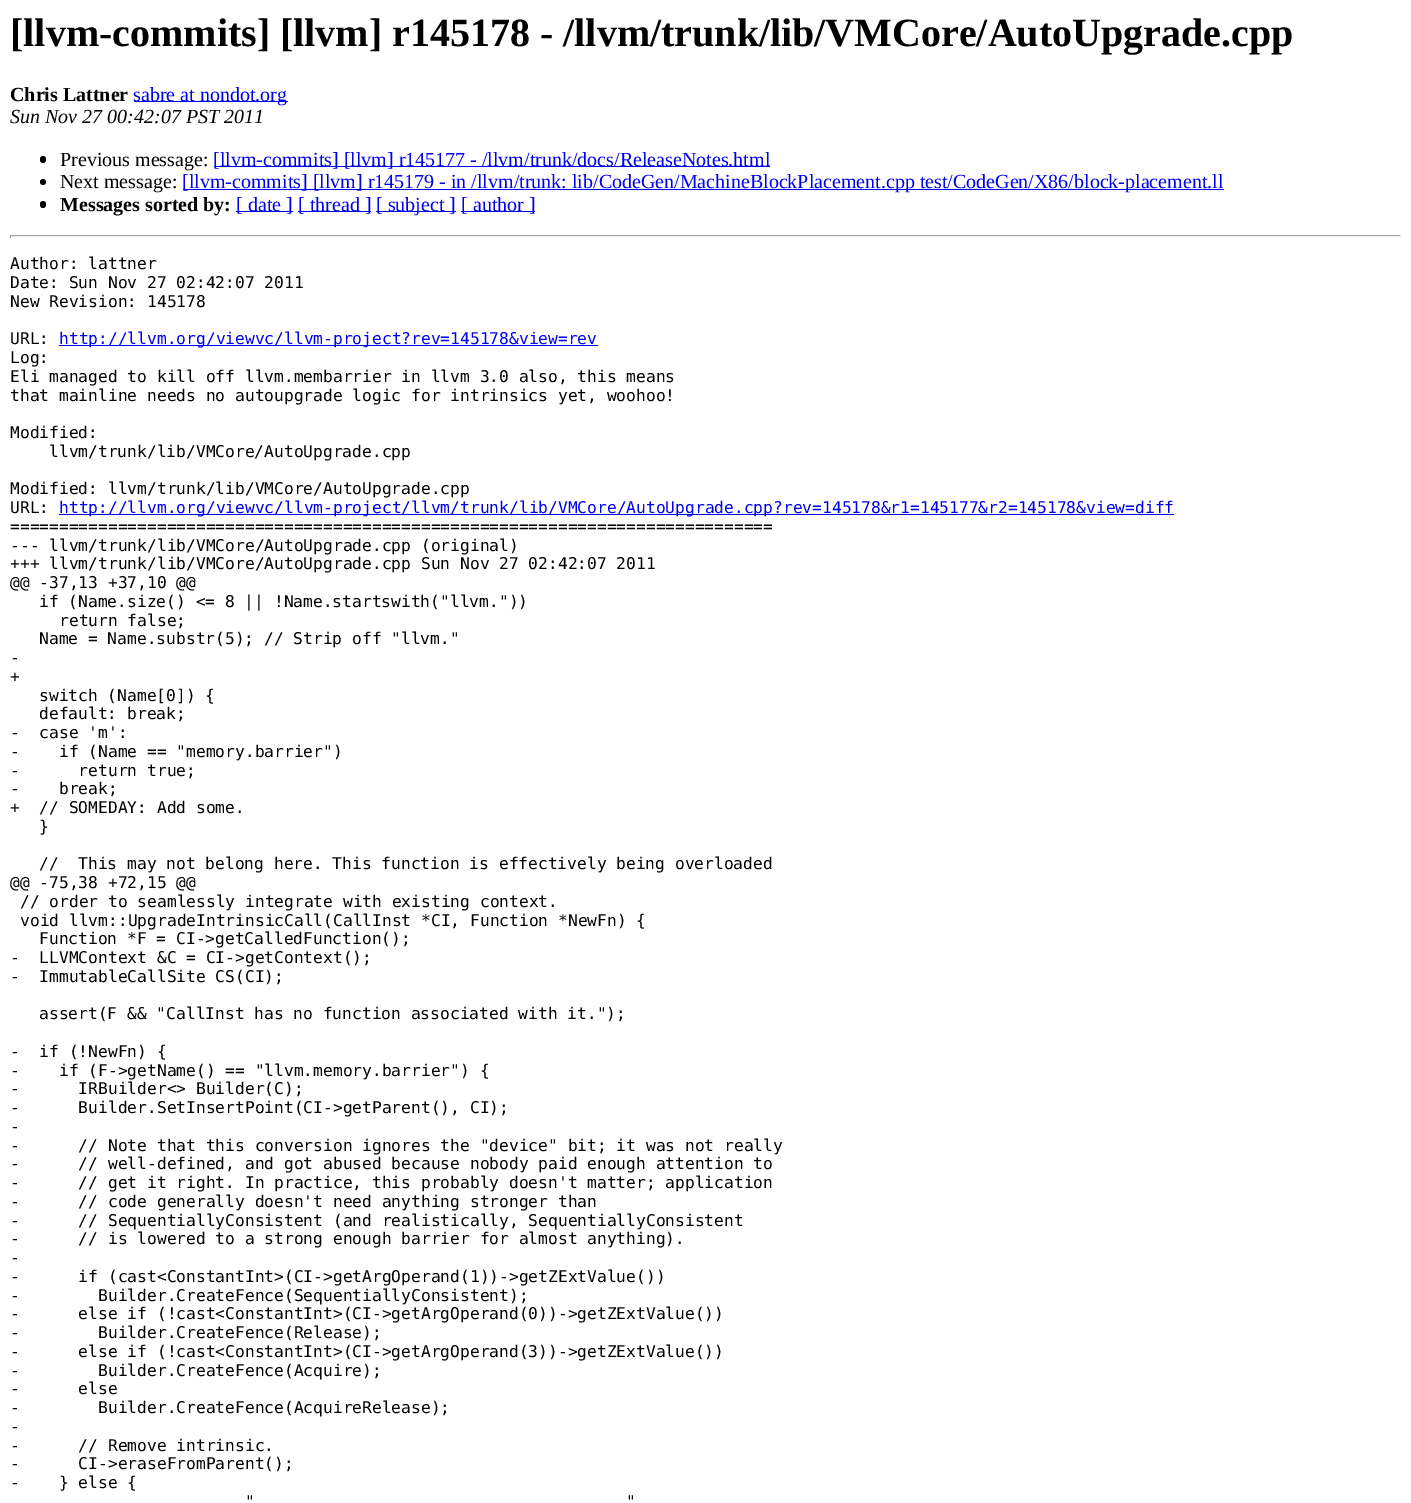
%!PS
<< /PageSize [1411 1503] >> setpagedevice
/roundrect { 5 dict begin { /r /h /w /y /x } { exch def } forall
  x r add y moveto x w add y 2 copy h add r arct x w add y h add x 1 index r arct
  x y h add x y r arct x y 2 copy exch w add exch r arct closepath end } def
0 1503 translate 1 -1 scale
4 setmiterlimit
1 setgray
0 0 1411 1503 rectfill
/LiberationSerif-Bold [40 0 0 -40 0 0] selectfont
0 setgray
10 46 moveto ([llvm-commits] [llvm] r145178 - /llvm/trunk/lib/VMCore/AutoUpgrade.cpp) show
/LiberationSerif-Bold [20 0 0 -20 0 0] selectfont
10 101 moveto (Chris Lattner) show
0 0 0.933 setrgbcolor
134 101 154 1 rectfill
/LiberationSerif-Regular [20 0 0 -20 0 0] selectfont
133 101 moveto (sabre at nondot.org) show
/LiberationSerif-Italic [20 0 0 -20 0 0] selectfont
0 setgray
10 123 moveto (Sun Nov 27 00:42:07 PST 2011) show
40 156 6 7 3 roundrect fill
/LiberationSerif-Regular [20 0 0 -20 0 0] selectfont
60 166 moveto (Previous message:) show
0 0 0.933 setrgbcolor
214 166 556 1 rectfill
213 166 moveto ([llvm-commits] [llvm] r145177 - /llvm/trunk/docs/ReleaseNotes.html) show
0 setgray
newpath 43 182 3 0 360 arc closepath fill
60 188 moveto (Next message:) show
0 0 0.933 setrgbcolor
183 189 1041 1 rectfill
182 188 moveto ([llvm-commits] [llvm] r145179 - in /llvm/trunk: lib/CodeGen/MachineBlockPlacement.cpp test/CodeGen/X86/block-placement.ll) show
0 setgray
40 201 6 7 3 roundrect fill
/LiberationSerif-Bold [20 0 0 -20 0 0] selectfont
60 211 moveto (Messages sorted by:) show
0 0 0.933 setrgbcolor
236 211 57 1 rectfill
/LiberationSerif-Regular [20 0 0 -20 0 0] selectfont
236 211 moveto ([ date ]) show
298 211 73 1 rectfill
298 211 moveto ([ thread ]) show
376 211 80 1 rectfill
376 211 moveto ([ subject ]) show
461 211 74 1 rectfill
461 211 moveto ([ author ]) show
0.624 setgray
10 235 1391 1 rectfill
0.933 setgray
1400 235 1 3 rectfill
10 236 1391 1 rectfill
0.624 setgray
10 235 1 3 rectfill
/DejaVuSansMono-Regular [16.25 0 0 -16.25 0 0] selectfont
0 setgray
10 269 moveto (Author: lattner) show
10 288 moveto (Date: Sun Nov 27 02:42:07 2011) show
10 307 moveto (New Revision: 145178) show
10 344 moveto (URL:) show
0 0 0.933 setrgbcolor
59 345 539 1 rectfill
59 344 moveto (http://llvm.org/viewvc/llvm-project?rev=145178&view=rev) show
0 setgray
10 363 moveto (Log:) show
10 382 moveto (Eli managed to kill off llvm.membarrier in llvm 3.0 also, this means) show
10 401 moveto (that mainline needs no autoupgrade logic for intrinsics yet, woohoo!) show
10 438 moveto (Modified:) show
49 457 moveto (llvm/trunk/lib/VMCore/AutoUpgrade.cpp) show
10 494 moveto (Modified: llvm/trunk/lib/VMCore/AutoUpgrade.cpp) show
10 513 moveto (URL:) show
0 0 0.933 setrgbcolor
59 514 1115 1 rectfill
59 513 moveto (http://llvm.org/viewvc/llvm-project/llvm/trunk/lib/VMCore/AutoUpgrade.cpp?rev=145178&r1=145177&r2=145178&view=diff) show
0 setgray
10 532 moveto (==============================================================================) show
10 551 moveto (--- llvm/trunk/lib/VMCore/AutoUpgrade.cpp \(original\)) show
10 569 moveto (+++ llvm/trunk/lib/VMCore/AutoUpgrade.cpp Sun Nov 27 02:42:07 2011) show
10 588 moveto (@@ -37,13 +37,10 @@) show
39 607 moveto (if \(Name.size\(\) <= 8 || !Name.startswith\("llvm."\)\)) show
59 626 moveto (return false;) show
39 644 moveto (Name = Name.substr\(5\); // Strip off "llvm.") show
10 663 moveto (-) show
10 682 moveto (+) show
39 701 moveto (switch \(Name[0]\) {) show
39 719 moveto (default: break;) show
10 738 moveto (-  case 'm':) show
10 757 moveto (-    if \(Name == "memory.barrier"\)) show
10 776 moveto (-      return true;) show
10 794 moveto (-    break;) show
10 813 moveto (+  // SOMEDAY: Add some.) show
39 832 moveto (}) show
39 869 moveto (//  This may not belong here. This function is effectively being overloaded) show
10 888 moveto (@@ -75,38 +72,15 @@) show
20 907 moveto (// order to seamlessly integrate with existing context.) show
20 926 moveto (void llvm::UpgradeIntrinsicCall\(CallInst *CI, Function *NewFn\) {) show
39 944 moveto (Function *F = CI->getCalledFunction\(\);) show
10 963 moveto (-  LLVMContext &C = CI->getContext\(\);) show
10 982 moveto (-  ImmutableCallSite CS\(CI\);) show
39 1019 moveto (assert\(F && "CallInst has no function associated with it."\);) show
10 1057 moveto (-  if \(!NewFn\) {) show
10 1076 moveto (-    if \(F->getName\(\) == "llvm.memory.barrier"\) {) show
10 1094 moveto (-      IRBuilder<> Builder\(C\);) show
10 1113 moveto (-      Builder.SetInsertPoint\(CI->getParent\(\), CI\);) show
10 1132 moveto (-) show
10 1151 moveto (-      // Note that this conversion ignores the "device" bit; it was not really) show
10 1169 moveto (-      // well-defined, and got abused because nobody paid enough attention to) show
10 1188 moveto (-      // get it right. In practice, this probably doesn't matter; application) show
10 1207 moveto (-      // code generally doesn't need anything stronger than) show
10 1226 moveto (-      // SequentiallyConsistent \(and realistically, SequentiallyConsistent) show
10 1244 moveto (-      // is lowered to a strong enough barrier for almost anything\).) show
10 1263 moveto (-) show
10 1282 moveto (-      if \(cast<ConstantInt>\(CI->getArgOperand\(1\)\)->getZExtValue\(\)\)) show
10 1301 moveto (-        Builder.CreateFence\(SequentiallyConsistent\);) show
10 1319 moveto (-      else if \(!cast<ConstantInt>\(CI->getArgOperand\(0\)\)->getZExtValue\(\)\)) show
10 1338 moveto (-        Builder.CreateFence\(Release\);) show
10 1357 moveto (-      else if \(!cast<ConstantInt>\(CI->getArgOperand\(3\)\)->getZExtValue\(\)\)) show
10 1376 moveto (-        Builder.CreateFence\(Acquire\);) show
10 1394 moveto (-      else) show
10 1413 moveto (-        Builder.CreateFence\(AcquireRelease\);) show
10 1432 moveto (-) show
10 1451 moveto (-      // Remove intrinsic.) show
10 1469 moveto (-      CI->eraseFromParent\(\);) show
10 1488 moveto (-    } else {) show
245 1507 moveto (") show
626 1507 moveto (") show
showpage
